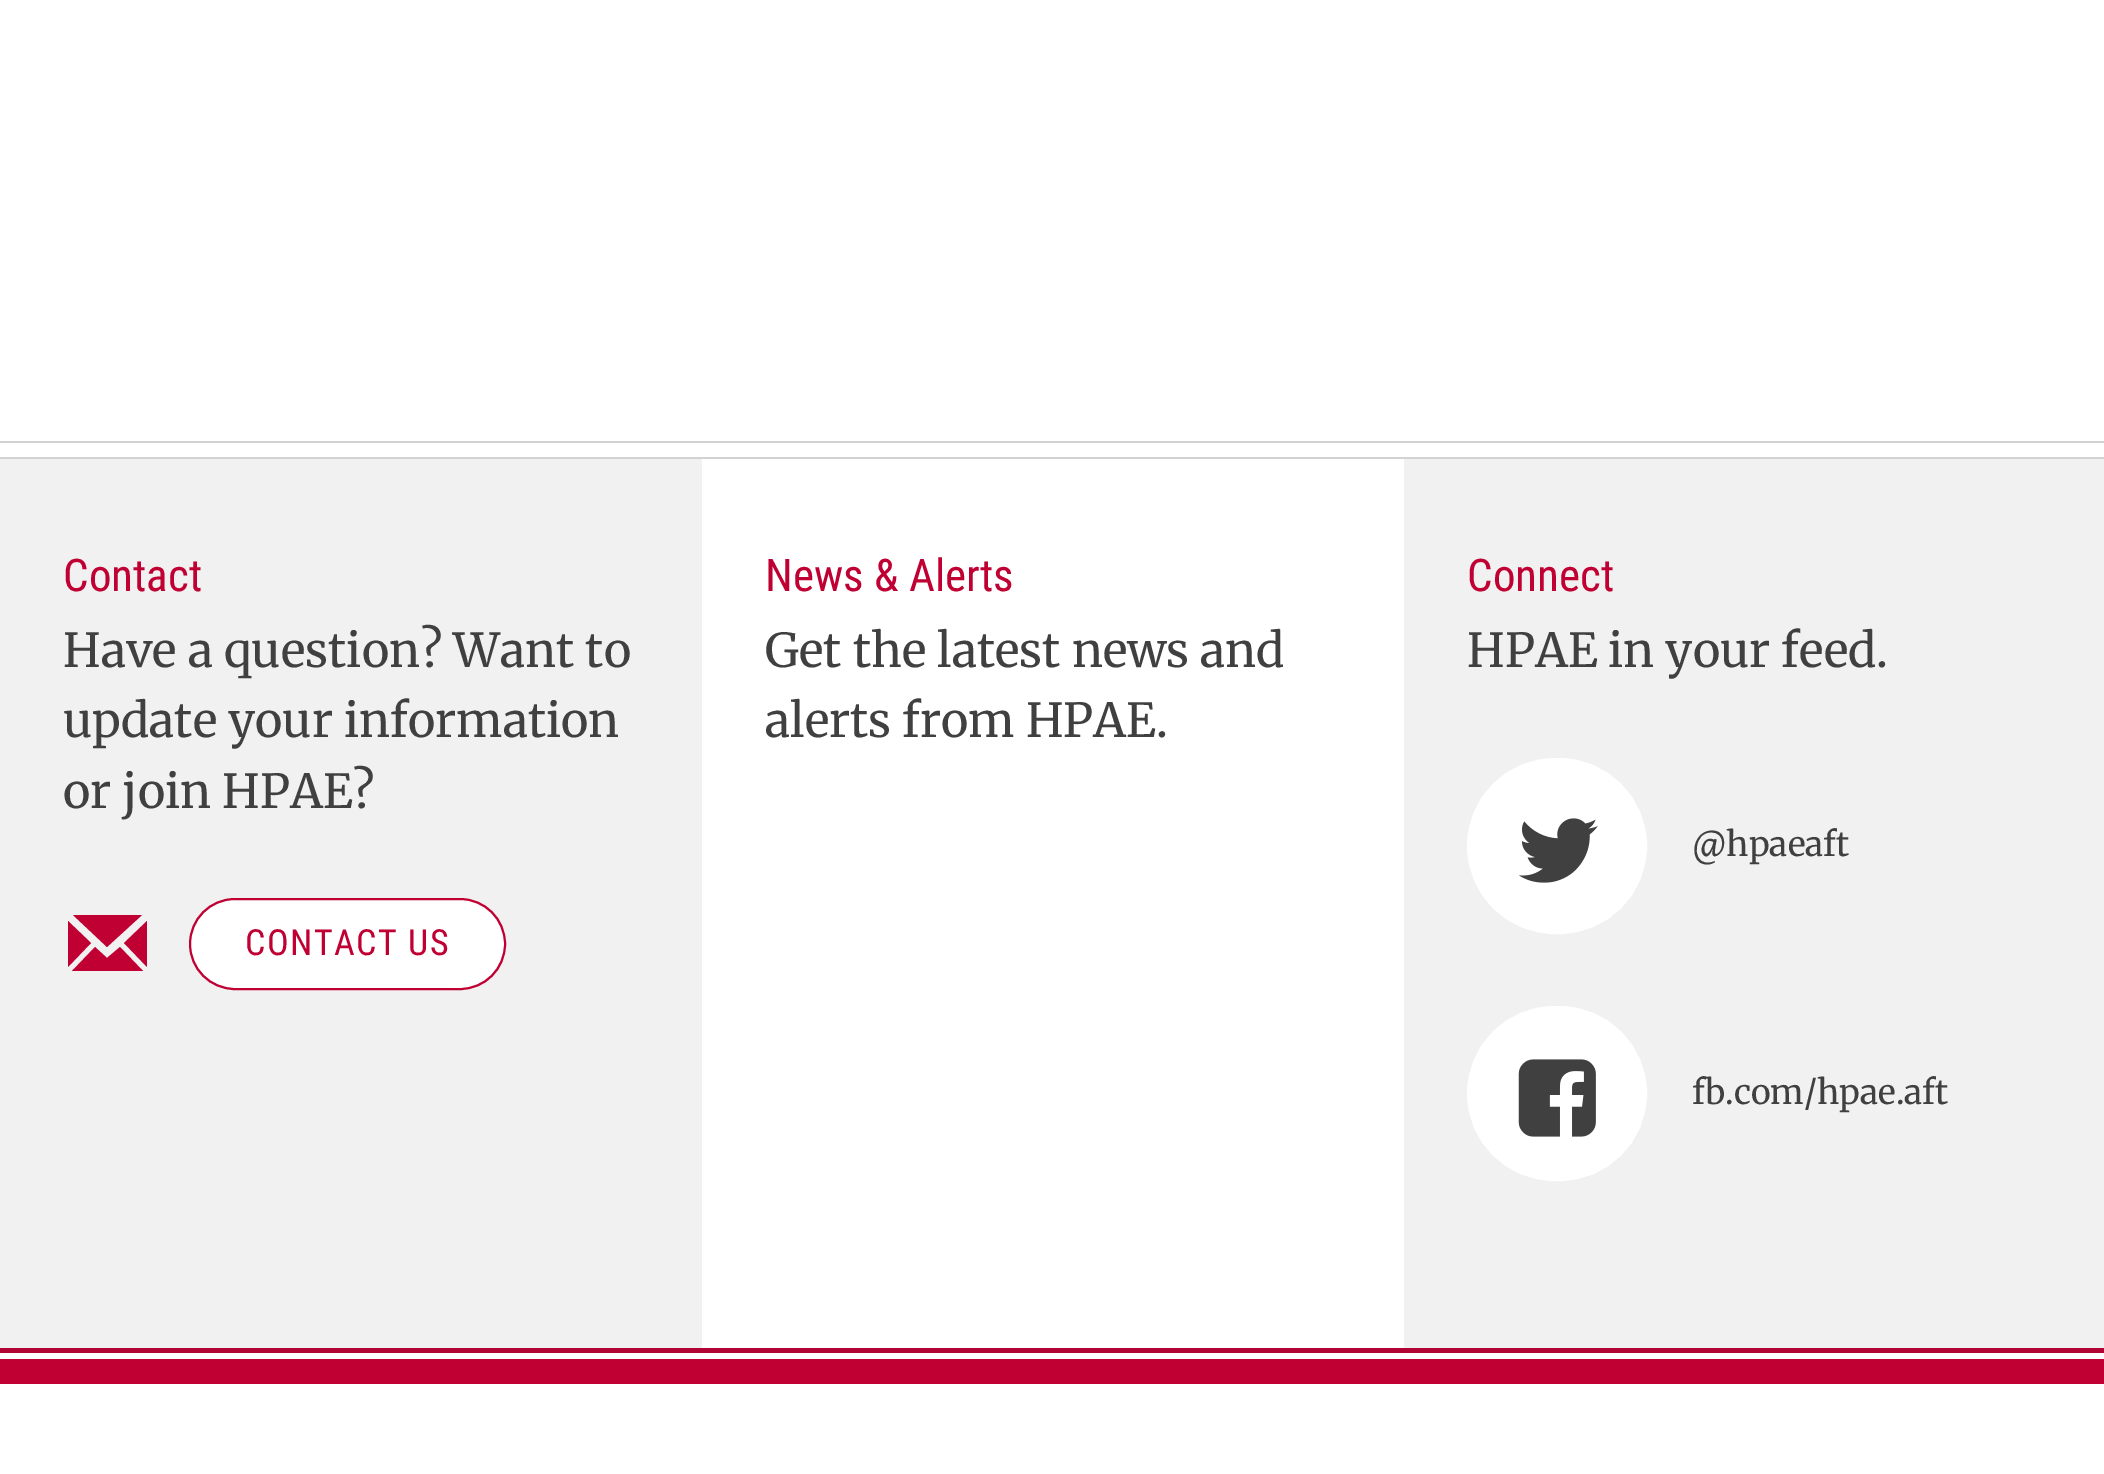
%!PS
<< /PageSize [2104 1474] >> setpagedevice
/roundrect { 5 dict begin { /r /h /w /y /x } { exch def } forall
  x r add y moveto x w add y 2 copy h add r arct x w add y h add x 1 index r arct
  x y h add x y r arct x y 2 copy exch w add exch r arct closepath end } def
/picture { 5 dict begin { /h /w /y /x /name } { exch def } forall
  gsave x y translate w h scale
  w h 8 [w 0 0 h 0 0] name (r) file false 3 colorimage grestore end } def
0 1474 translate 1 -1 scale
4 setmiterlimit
1 setgray
0 0 2104 1474 rectfill
0.816 0.824 0.827 setrgbcolor
0 441 2104 2 rectfill
0.945 0.945 0.949 setrgbcolor
0 459 702 889 rectfill
0.816 0.824 0.827 setrgbcolor
0 457 2104 2 rectfill
/RobotoCondensed-Regular [45 0 0 -45 0 0] selectfont
0.753 0 0.196 setrgbcolor
63 591 moveto (Contact) show
/Merriweather-Regular [46.75 0 0 -46.75 0 0] selectfont
0.251 0.251 0.255 setrgbcolor
63 667 moveto (Have a question? Want to) show
63 737 moveto (update your information) show
63 808 moveto (or join HPAE?) show
0.753 0 0.196 setrgbcolor
newpath 120 947 moveto 143 971 lineto 72 971 lineto 95 947 lineto 107 958 lineto closepath 73 915 moveto 142 915 lineto 107 947 lineto closepath 124 943 moveto 147 921 lineto 147 967 lineto closepath 68 967 moveto 68 921 lineto 91 943 lineto closepath fill
1 setgray
190 899 315 90 45 roundrect gsave fill grestore
0.753 0 0.196 setrgbcolor
2 setlinewidth
stroke
/RobotoCondensed-Regular [36 0 0 -36 0 0] selectfont
245 955 moveto 1.5 0 (CONTACT US) ashow
/RobotoCondensed-Regular [45 0 0 -45 0 0] selectfont
765 591 moveto (News & Alerts) show
/Merriweather-Regular [46.75 0 0 -46.75 0 0] selectfont
0.251 0.251 0.255 setrgbcolor
765 667 moveto (Get the latest news and) show
765 737 moveto (alerts from HPAE.) show
0.945 0.945 0.949 setrgbcolor
1404 459 700 889 rectfill
/RobotoCondensed-Regular [45 0 0 -45 0 0] selectfont
0.753 0 0.196 setrgbcolor
1467 591 moveto (Connect) show
/Merriweather-Regular [46.75 0 0 -46.75 0 0] selectfont
0.251 0.251 0.255 setrgbcolor
1467 667 moveto (HPAE in your feed.) show
1 setgray
1468 759 178 174 87 roundrect gsave fill grestore
stroke
(img1.rgb) 1519 818 79 65 picture
/Merriweather-Regular [33.75 0 0 -33.75 0 0] selectfont
0.251 0.251 0.255 setrgbcolor
1692 856 moveto (@hpaeaft) show
1 setgray
1468 1007 178 173 86.5 roundrect gsave fill grestore
stroke
(img2.rgb) 1518 1059 78 78 picture
0.251 0.251 0.255 setrgbcolor
1692 1104 moveto (fb.com/hpae.aft) show
0.694 0.016 0.208 setrgbcolor
0 1348 2104 5 rectfill
0.753 0 0.196 setrgbcolor
0 1359 2104 25 rectfill
showpage
